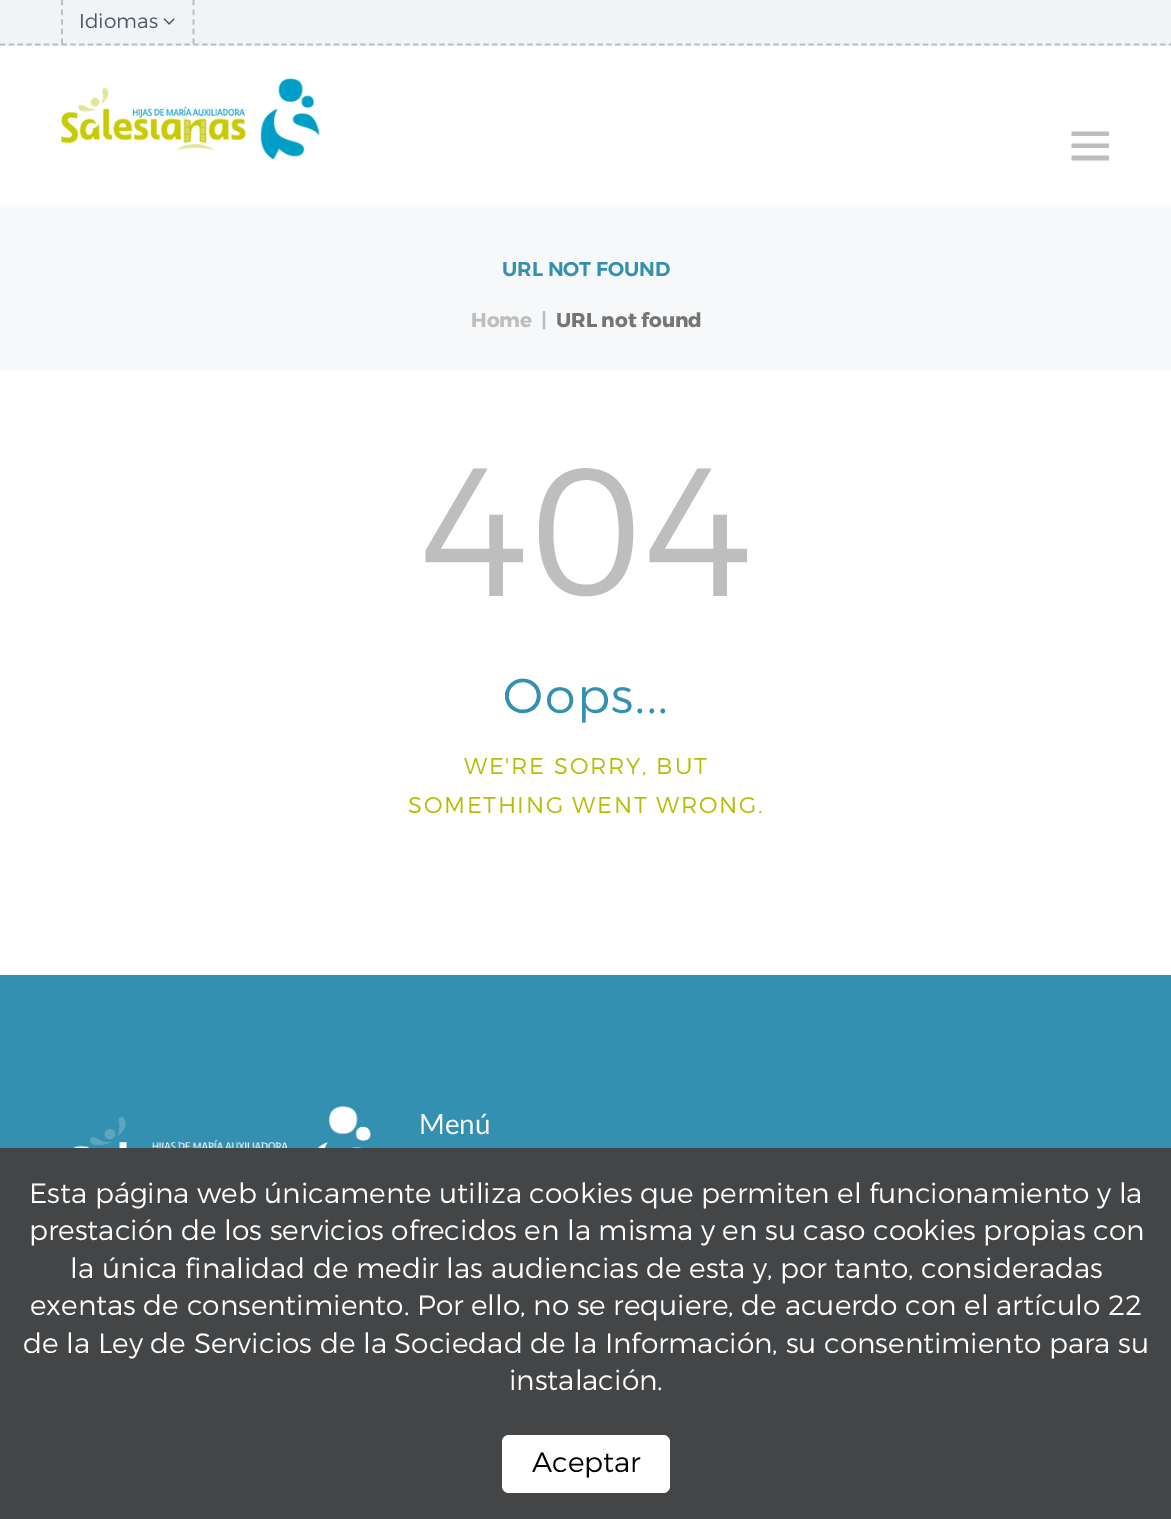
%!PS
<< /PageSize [1171 1519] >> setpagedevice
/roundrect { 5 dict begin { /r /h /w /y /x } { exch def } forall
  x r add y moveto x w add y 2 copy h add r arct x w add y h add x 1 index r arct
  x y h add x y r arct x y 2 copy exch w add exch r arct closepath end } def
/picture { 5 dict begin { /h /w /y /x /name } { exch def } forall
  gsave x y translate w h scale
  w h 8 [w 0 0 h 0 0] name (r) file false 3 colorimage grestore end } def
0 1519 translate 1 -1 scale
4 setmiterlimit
1 setgray
0 0 1171 1519 rectfill
0.945 0.957 0.969 setrgbcolor
0 0 1171 46 rectfill
0.749 0.745 0.745 setrgbcolor
1.8 setlinewidth
[5.25 3.54] 0 setdash
newpath 0 44.5 moveto 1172.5 44.5 lineto stroke
[5.25 4.38] 0 setdash
newpath 193.5 0 moveto 193.5 44 lineto stroke
newpath 62 0 moveto 62 44 lineto stroke
/Montserrat-Light [20 0 0 -20 0 0] selectfont
0.298 0.349 0.404 setrgbcolor
79 28 moveto (Idiomas) show
(img1.rgb) 163 18 12 7 picture
0.988 0.992 0.992 setrgbcolor
0 203 1171 4 rectfill
(img2.rgb) 61 78 259 82 picture
0.749 0.745 0.745 setrgbcolor
newpath 1071.5 160.5 moveto 1109 160.5 lineto 1109 155.5 lineto 1071.5 155.5 lineto closepath 1071.5 148 moveto 1109 148 lineto 1109 143.5 lineto 1071.5 143.5 lineto closepath 1071.5 131.5 moveto 1071.5 136 lineto 1109 136 lineto 1109 131.5 lineto closepath fill
0.965 0.973 0.98 setrgbcolor
0 207 1171 164 rectfill
/Montserrat-SemiBold [20 0 0 -20 0 0] selectfont
0.204 0.565 0.69 setrgbcolor
502 276 moveto (URL NOT FOUND) show
/Montserrat-Bold [20 0 0 -20 0 0] selectfont
0.749 0.745 0.745 setrgbcolor
471 327 moveto (Home) show
541 327 moveto (|) show
0.459 setgray
556 327 moveto (URL not found) show
/Montserrat-Light [182 0 0 -182 0 0] selectfont
0.749 0.745 0.745 setrgbcolor
418 596 moveto (404) show
/Montserrat-Light [49 0 0 -49 0 0] selectfont
0.204 0.565 0.69 setrgbcolor
503 713 moveto 1.75 0 (Oops...) ashow
/Montserrat-Light [22.75 0 0 -22.75 0 0] selectfont
0.714 0.737 0 setrgbcolor
464 774 moveto 1.75 0 (WE'RE SORRY, BUT) ashow
408 813 moveto 1.75 0 (SOMETHING WENT WRONG.) ashow
0.204 0.565 0.69 setrgbcolor
0 975 1171 173 rectfill
(img3.rgb) 73 1106 298 42 picture
/Lato-Regular [28 0 0 -28 0 0] selectfont
0.965 setgray
419 1134 moveto (Menú) show
0.267 0.271 0.275 setrgbcolor
0 1148 1171 371 rectfill
/Montserrat-Light [28 0 0 -28 0 0] selectfont
1 setgray
29 1203 moveto (Esta página web únicamente utiliza cookies que permiten el funcionamiento y la) show
29 1240 moveto (prestación de los servicios ofrecidos en la misma y en su caso cookies propias con) show
70 1278 moveto (la única finalidad de medir las audiencias de esta y, por tanto, consideradas) show
30 1315 moveto (exentas de consentimiento. Por ello, no se requiere, de acuerdo con el artículo 22) show
23 1353 moveto (de la Ley de Servicios de la Sociedad de la Información, su consentimiento para su) show
509 1390 moveto (instalación.) show
502 1435 168 58 7 roundrect fill
0 setgray
532 1472 moveto (Aceptar) show
showpage
